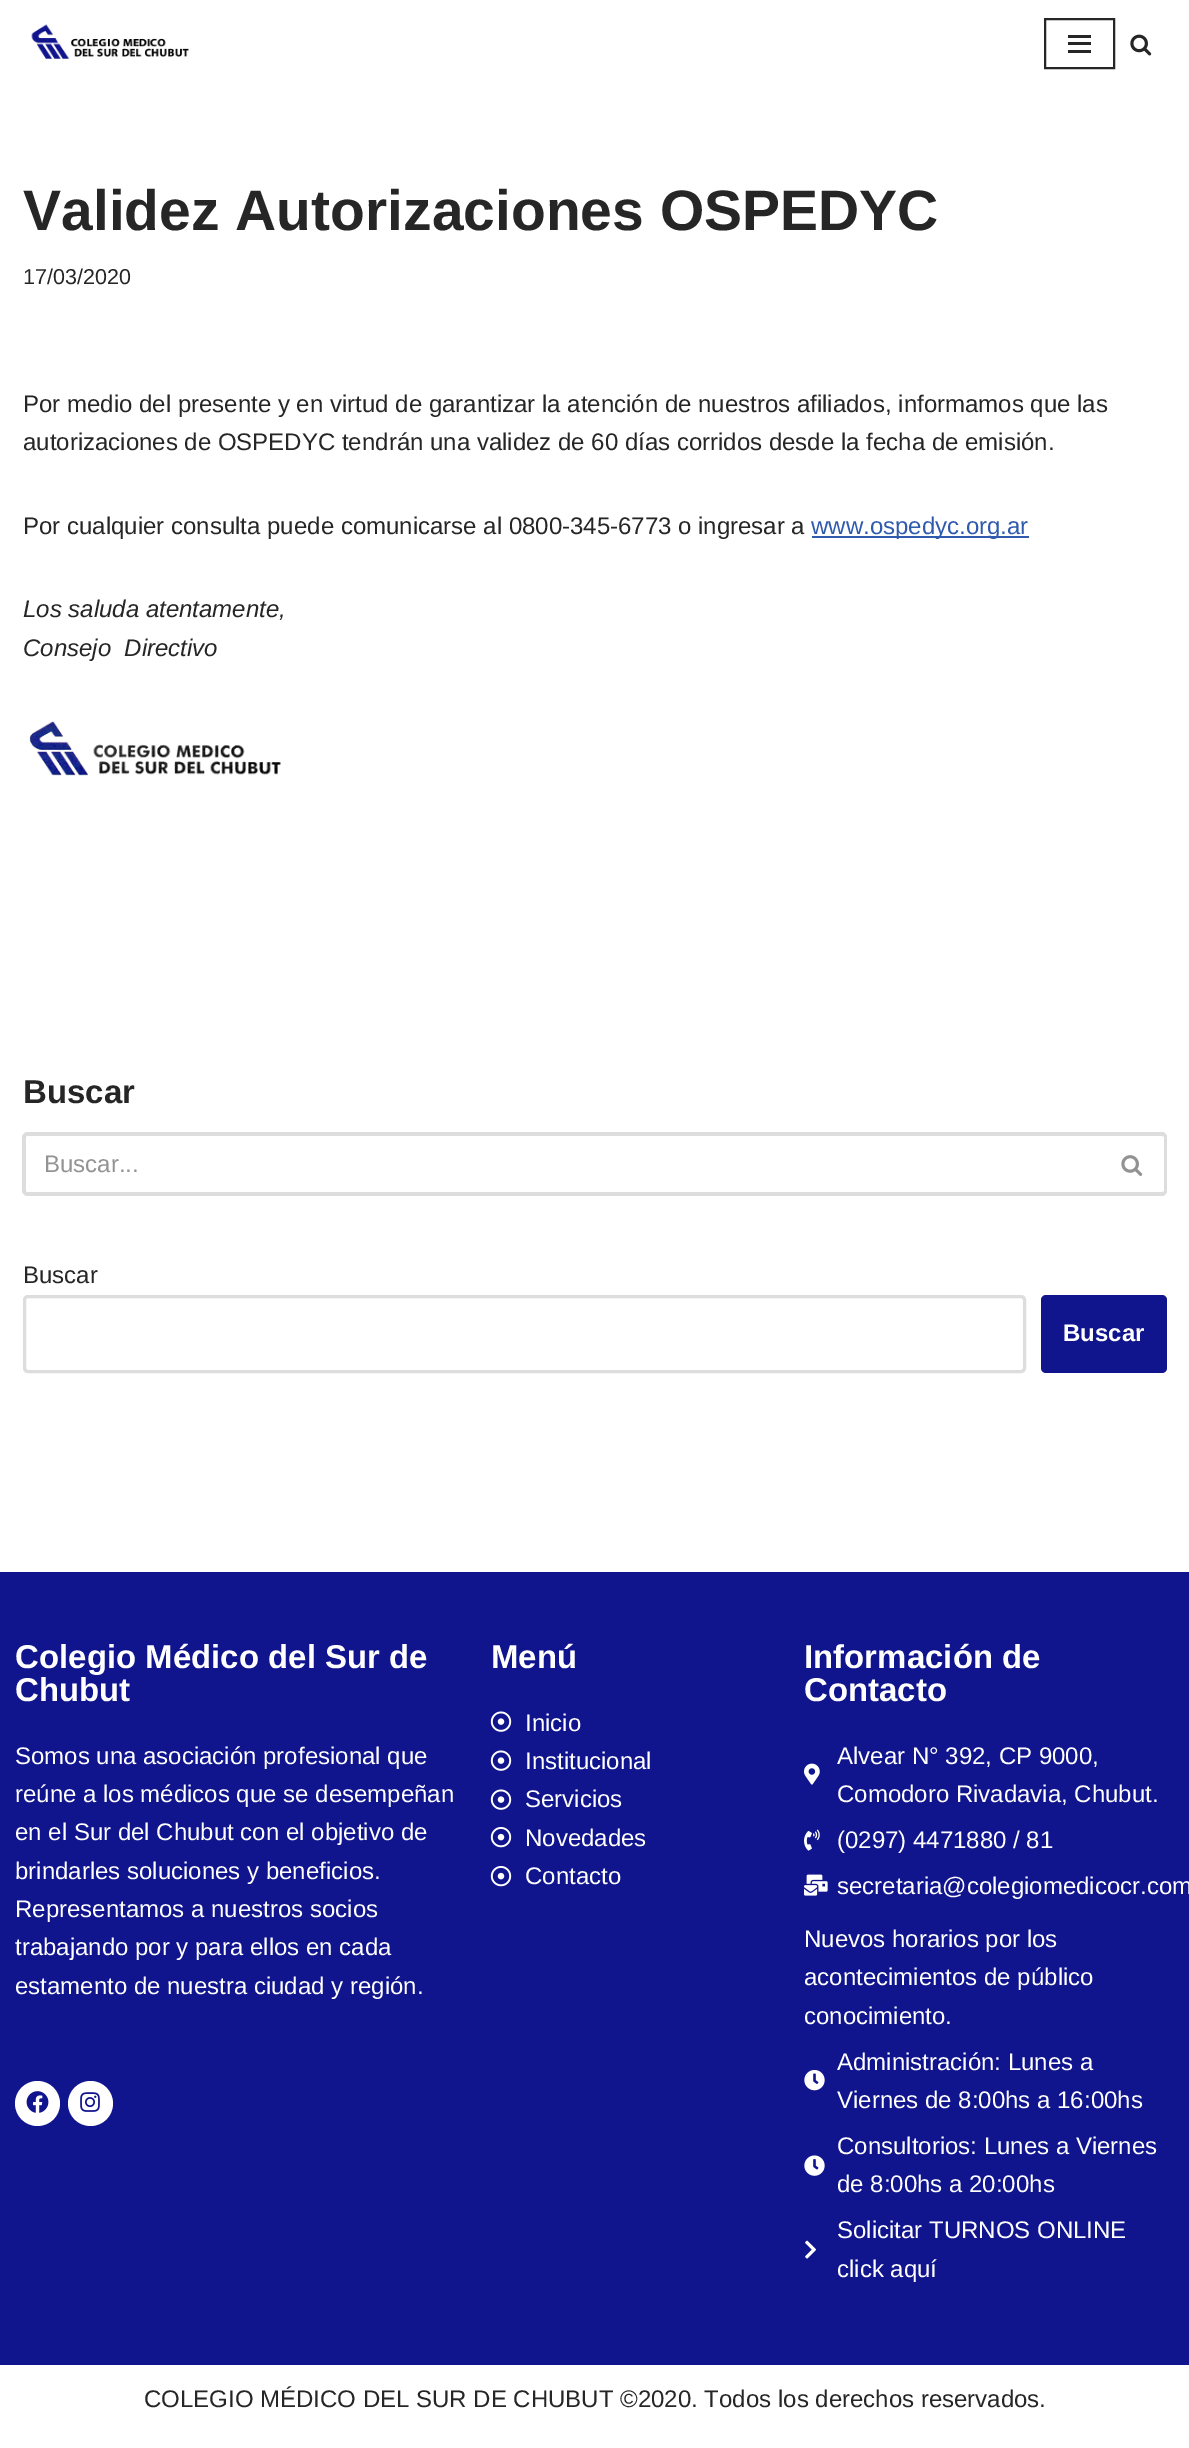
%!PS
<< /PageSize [1189 2448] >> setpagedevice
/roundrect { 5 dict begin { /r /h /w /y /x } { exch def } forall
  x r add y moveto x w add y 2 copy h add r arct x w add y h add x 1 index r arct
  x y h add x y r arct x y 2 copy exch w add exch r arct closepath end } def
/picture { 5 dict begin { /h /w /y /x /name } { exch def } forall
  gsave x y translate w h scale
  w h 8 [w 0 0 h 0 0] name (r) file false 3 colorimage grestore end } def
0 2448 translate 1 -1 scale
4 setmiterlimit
1 setgray
0 0 1189 2448 rectfill
(img1.rgb) 31 24 158 35 picture
0.153 0.149 0.149 setrgbcolor
2 setlinewidth
1045 19 69 49 rectstroke
1068 35 23 3 rectfill
1068 42 23 3 rectfill
1068 50 23 3 rectfill
(img2.rgb) 1130 34 22 22 picture
/LiberationSans-Bold [57 0 0 -57 0 0] selectfont
23 230 moveto (Validez Autorizaciones OSPEDYC) show
/LiberationSans-Regular [21.5 0 0 -21.5 0 0] selectfont
23 284 moveto (17/03/2020) show
/LiberationSans-Regular [24 0 0 -24 0 0] selectfont
23 412 moveto (Por medio del presente y en virtud de garantizar la atención de nuestros afiliados, informamos que las) show
23 450 moveto (autorizaciones de OSPEDYC tendrán una validez de 60 días corridos desde la fecha de emisión.) show
23 534 moveto (Por cualquier consulta puede comunicarse al 0800-345-6773 o ingresar a) show
0.184 0.353 0.682 setrgbcolor
812 536 217 2 rectfill
811 534 moveto (www.ospedyc.org.ar) show
/LiberationSans-Italic [24 0 0 -24 0 0] selectfont
0.153 0.149 0.149 setrgbcolor
23 617 moveto (Los saluda atentamente,) show
23 656 moveto (Consejo  Directivo) show
(img3.rgb) 29 721 252 55 picture
/LiberationSans-Bold [33 0 0 -33 0 0] selectfont
23 1103 moveto (Buscar) show
0.867 setgray
newpath 27 1132 moveto 1100 1132 lineto 1100 1196 lineto 27 1196 lineto 25 1196 22 1193 22 1191 curveto 22 1137 lineto 22 1135 25 1132 27 1132 curveto closepath 27 1136 moveto 1100 1136 lineto 1100 1192 lineto 27 1192 lineto 26 1192 26 1192 26 1191 curveto 26 1137 lineto 26 1136 26 1136 27 1136 curveto closepath eofill
/LiberationSans-Regular [24 0 0 -24 0 0] selectfont
0.576 setgray
44 1172 moveto (Buscar...) show
0.867 setgray
newpath 1100 1132 moveto 1162 1132 lineto 1165 1132 1167 1135 1167 1137 curveto 1167 1191 lineto 1167 1193 1165 1196 1162 1196 curveto 1100 1196 lineto closepath 1100 1136 moveto 1162 1136 lineto 1163 1136 1164 1136 1164 1137 curveto 1164 1191 lineto 1164 1192 1163 1192 1162 1192 curveto 1100 1192 lineto closepath eofill
(img4.rgb) 1121 1155 22 21 picture
0.153 0.149 0.149 setrgbcolor
23 1283 moveto (Buscar) show
0.867 setgray
3 setlinewidth
24.5 1296.5 1000 75 3.5 roundrect stroke
0.063 0.078 0.553 setrgbcolor
1041 1295 126 78 5 roundrect fill
/LiberationSans-Bold [24 0 0 -24 0 0] selectfont
1 setgray
1063 1341 moveto (Buscar) show
0.063 0.078 0.553 setrgbcolor
0 1572 1189 793 rectfill
/LiberationSans-Bold [33 0 0 -33 0 0] selectfont
1 setgray
15 1668 moveto (Colegio Médico del Sur de) show
15 1701 moveto (Chubut) show
/LiberationSans-Regular [24 0 0 -24 0 0] selectfont
15 1764 moveto (Somos una asociación profesional que) show
15 1802 moveto (reúne a los médicos que se desempeñan) show
15 1840 moveto (en el Sur del Chubut con el objetivo de) show
15 1879 moveto (brindarles soluciones y beneficios.) show
15 1917 moveto (Representamos a nuestros socios) show
15 1955 moveto (trabajando por y para ellos en cada) show
15 1994 moveto (estamento de nuestra ciudad y región.) show
newpath 37.5 2103.5 22.5 0 360 arc closepath fill
(img5.rgb) 26 2091 23 22 picture
newpath 90.5 2103.5 22.5 0 360 arc closepath fill
(img6.rgb) 80 2092 20 20 picture
/LiberationSans-Bold [33 0 0 -33 0 0] selectfont
491 1668 moveto (Menú) show
(img7.rgb) 490 1711 22 21 picture
/LiberationSans-Regular [24 0 0 -24 0 0] selectfont
525 1731 moveto (Inicio) show
(img7.rgb) 490 1750 22 21 picture
525 1769 moveto (Institucional) show
(img7.rgb) 490 1789 22 21 picture
525 1807 moveto (Servicios) show
(img8.rgb) 490 1827 22 21 picture
525 1846 moveto (Novedades) show
(img8.rgb) 490 1866 22 21 picture
525 1884 moveto (Contacto) show
/LiberationSans-Bold [33 0 0 -33 0 0] selectfont
804 1668 moveto (Información de) show
804 1701 moveto (Contacto) show
(img9.rgb) 804 1763 16 22 picture
/LiberationSans-Regular [24 0 0 -24 0 0] selectfont
837 1764 moveto (Alvear N° 392, CP 9000,) show
837 1802 moveto (Comodoro Rivadavia, Chubut.) show
(img10.rgb) 804 1829 16 22 picture
837 1848 moveto (\(0297\) 4471880 / 81) show
(img11.rgb) 804 1874 24 22 picture
837 1894 moveto (secretaria@colegiomedicocr.com) show
804 1947 moveto (Nuevos horarios por los) show
804 1985 moveto (acontecimientos de público) show
804 2024 moveto (conocimiento.) show
(img12.rgb) 804 2070 21 21 picture
837 2070 moveto (Administración: Lunes a) show
837 2108 moveto (Viernes de 8:00hs a 16:00hs) show
(img13.rgb) 804 2155 21 21 picture
837 2154 moveto (Consultorios: Lunes a Viernes) show
837 2192 moveto (de 8:00hs a 20:00hs) show
(img14.rgb) 805 2240 11 19 picture
837 2238 moveto (Solicitar TURNOS ONLINE) show
837 2277 moveto (click aquí) show
0.153 0.149 0.149 setrgbcolor
144 2407 moveto (COLEGIO MÉDICO DEL SUR DE CHUBUT ©2020. Todos los derechos reservados.) show
showpage
